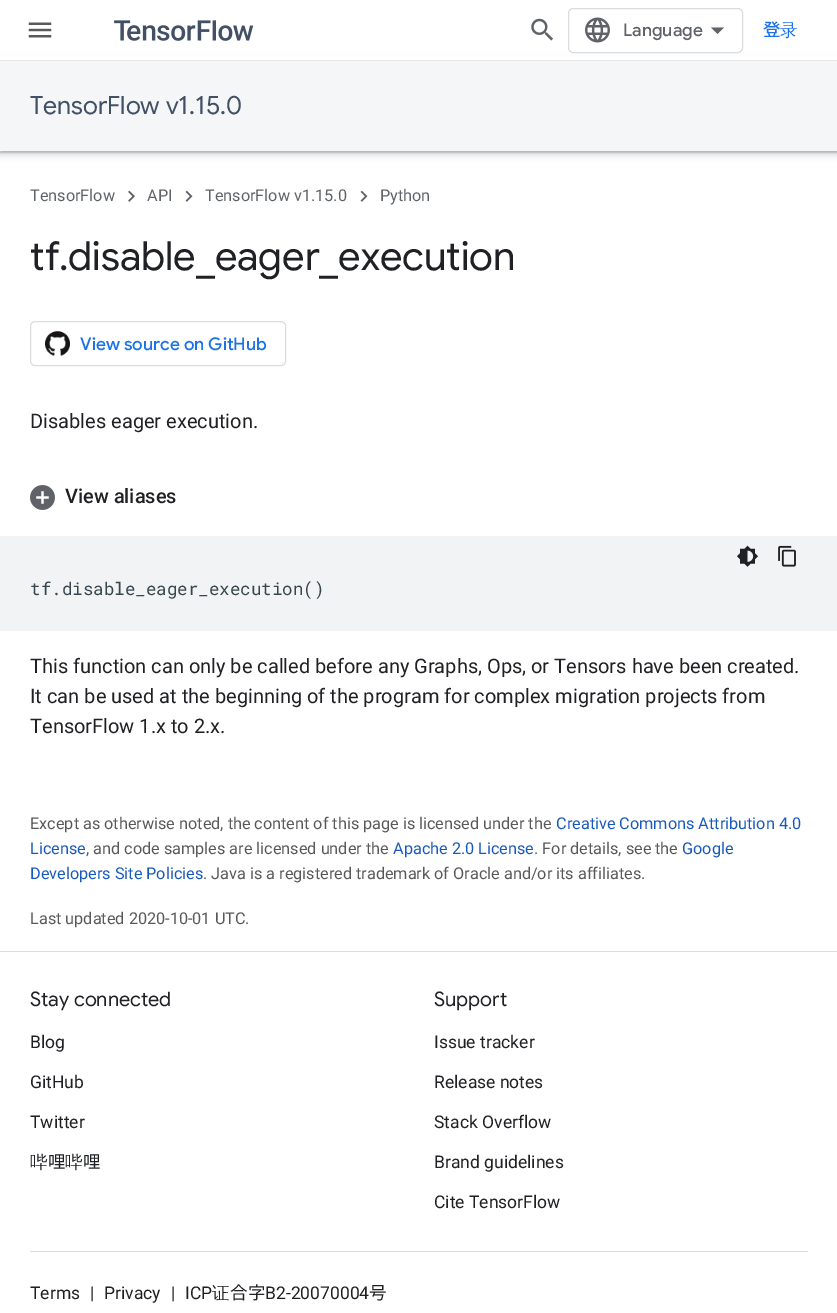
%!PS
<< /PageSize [837 1313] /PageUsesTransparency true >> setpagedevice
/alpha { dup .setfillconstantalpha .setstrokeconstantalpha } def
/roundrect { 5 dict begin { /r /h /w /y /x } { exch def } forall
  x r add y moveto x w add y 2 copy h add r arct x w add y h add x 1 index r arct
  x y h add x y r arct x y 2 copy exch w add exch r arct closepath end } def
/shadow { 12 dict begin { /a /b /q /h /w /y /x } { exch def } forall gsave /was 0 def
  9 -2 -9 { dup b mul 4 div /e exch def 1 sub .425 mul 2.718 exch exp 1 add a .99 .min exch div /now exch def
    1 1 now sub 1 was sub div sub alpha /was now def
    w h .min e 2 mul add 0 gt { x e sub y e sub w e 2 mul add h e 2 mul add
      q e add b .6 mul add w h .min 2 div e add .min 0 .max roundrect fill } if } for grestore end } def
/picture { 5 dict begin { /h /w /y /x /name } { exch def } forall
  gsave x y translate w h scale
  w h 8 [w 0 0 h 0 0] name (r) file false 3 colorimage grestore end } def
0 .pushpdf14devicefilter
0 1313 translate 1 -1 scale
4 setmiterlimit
1 setgray
0 0 837 1313 rectfill
0.235 0.251 0.263 setrgbcolor
-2 61 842 95 0 4 0.15 shadow
0 63 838 90 0 1 0.3 shadow
1 setgray
0 56 837 4 rectfill
0.902 setgray
0 60 837 1 rectfill
(img1.rgb) 28 22 24 16 picture
(img2.rgb) 114 20 140 21 picture
(img3.rgb) 531 18 22 23 picture
0.855 0.863 0.878 setrgbcolor
568.5 8.5 174 44 4.5 roundrect stroke
(img4.rgb) 585 17 25 26 picture
/GoogleSans-Medium [17.5 0 0 -17.5 0 0] selectfont
0.373 0.388 0.408 setrgbcolor
623 36 moveto (Language) show
newpath 717.5 34 moveto 711 27.5 lineto 724 27.5 lineto closepath fill
/NotoSansJP-Medium [17.5 0 0 -17.5 0 0] selectfont
0.102 0.451 0.91 setrgbcolor
763 36 moveto (登) show
/WenQuanYiZenHei-Medium [17.5 0 0 -17.5 0 0] selectfont
780 36 moveto (录) show
0.961 0.965 0.969 setrgbcolor
0 61 837 90 rectfill
/GoogleSans-Regular [25 0 0 -25 0 0] selectfont
0.259 0.314 0.4 setrgbcolor
30 114 moveto (TensorFlow v1.15.0) show
/Roboto-Regular [16.25 0 0 -16.25 0 0] selectfont
0.373 0.388 0.408 setrgbcolor
30 201 moveto (TensorFlow) show
(img5.rgb) 128 190 7 12 picture
147 201 moveto (API) show
(img6.rgb) 185 190 8 12 picture
205 201 moveto (TensorFlow v1.15.0) show
(img6.rgb) 360 190 8 12 picture
380 201 moveto (Python) show
/GoogleSans-Regular [40 0 0 -40 0 0] selectfont
0.125 0.129 0.141 setrgbcolor
30 270 moveto (tf.disable_eager_execution) show
0.855 0.863 0.878 setrgbcolor
30.5 321.5 255 44 4.5 roundrect stroke
(img7.rgb) 45 331 25 25 picture
/GoogleSans-Medium [17.5 0 0 -17.5 0 0] selectfont
0.102 0.451 0.91 setrgbcolor
80 350 moveto (View source on GitHub) show
/Roboto-Regular [20 0 0 -20 0 0] selectfont
0.125 0.129 0.141 setrgbcolor
30 428 moveto (Disables eager execution.) show
(img8.rgb) 30 485 25 25 picture
/Roboto-Medium [20 0 0 -20 0 0] selectfont
65 503 moveto (View aliases) show
0.945 0.953 0.957 setrgbcolor
0 536 837 95 rectfill
(img9.rgb) 737 545 21 22 picture
(img10.rgb) 778 545 18 22 picture
/RobotoMono-Regular [17.5 0 0 -17.5 0 0] selectfont
0.216 0.278 0.31 setrgbcolor
30 595 moveto (tf.disable_eager_execution\(\)) show
/Roboto-Regular [20 0 0 -20 0 0] selectfont
0.125 0.129 0.141 setrgbcolor
30 673 moveto (This function can only be called before any Graphs, Ops, or Tensors have been created.) show
30 703 moveto (It can be used at the beginning of the program for complex migration projects from) show
30 733 moveto (TensorFlow 1.x to 2.x.) show
/Roboto-Regular [16.25 0 0 -16.25 0 0] selectfont
0.349 setgray
30 829 moveto (Except as otherwise noted, the content of this page is licensed under the) show
0.094 0.353 0.737 setrgbcolor
556 829 moveto (Creative Commons Attribution 4.0) show
30 854 moveto (License) show
0.349 setgray
86 854 moveto (, and code samples are licensed under the) show
0.094 0.353 0.737 setrgbcolor
393 854 moveto (Apache 2.0 License) show
0.349 setgray
534 854 moveto (. For details, see the) show
0.094 0.353 0.737 setrgbcolor
682 854 moveto (Google) show
30 879 moveto (Developers Site Policies) show
0.349 setgray
203 879 moveto (. Java is a registered trademark of Oracle and/or its affiliates.) show
30 924 moveto (Last updated 2020-10-01 UTC.) show
0.855 0.863 0.878 setrgbcolor
0 951 837 1 rectfill
30 1251 778 1 rectfill
/GoogleSans-Regular [20 0 0 -20 0 0] selectfont
0.125 0.129 0.141 setrgbcolor
30 1006 moveto (Stay connected) show
/Roboto-Regular [17.5 0 0 -17.5 0 0] selectfont
30 1048 moveto (Blog) show
30 1088 moveto (GitHub) show
30 1128 moveto (Twitter) show
/WenQuanYiZenHei-Medium [17.5 0 0 -17.5 0 0] selectfont
30 1168 moveto (哔) show
/NotoSansJP-Regular [17.5 0 0 -17.5 0 0] selectfont
48 1168 moveto (哩) show
/WenQuanYiZenHei-Medium [17.5 0 0 -17.5 0 0] selectfont
65 1168 moveto (哔) show
/NotoSansJP-Regular [17.5 0 0 -17.5 0 0] selectfont
83 1168 moveto (哩) show
/GoogleSans-Regular [20 0 0 -20 0 0] selectfont
434 1006 moveto (Support) show
/Roboto-Regular [17.5 0 0 -17.5 0 0] selectfont
434 1048 moveto (Issue tracker) show
434 1088 moveto (Release notes) show
434 1128 moveto (Stack Overflow) show
434 1168 moveto (Brand guidelines) show
434 1208 moveto (Cite TensorFlow) show
30 1299 moveto (Terms) show
90 1299 moveto (|) show
104 1299 moveto (Privacy) show
171 1299 moveto (|) show
185 1299 moveto (ICP) show
/WenQuanYiZenHei-Medium [17.5 0 0 -17.5 0 0] selectfont
212 1299 moveto (证) show
/NotoSansJP-Regular [17.5 0 0 -17.5 0 0] selectfont
230 1299 moveto (合字) show
/Roboto-Regular [17.5 0 0 -17.5 0 0] selectfont
265 1299 moveto (B2-20070004) show
/NotoSansJP-Regular [17.5 0 0 -17.5 0 0] selectfont
369 1299 moveto (号) show
.poppdf14devicefilter showpage
